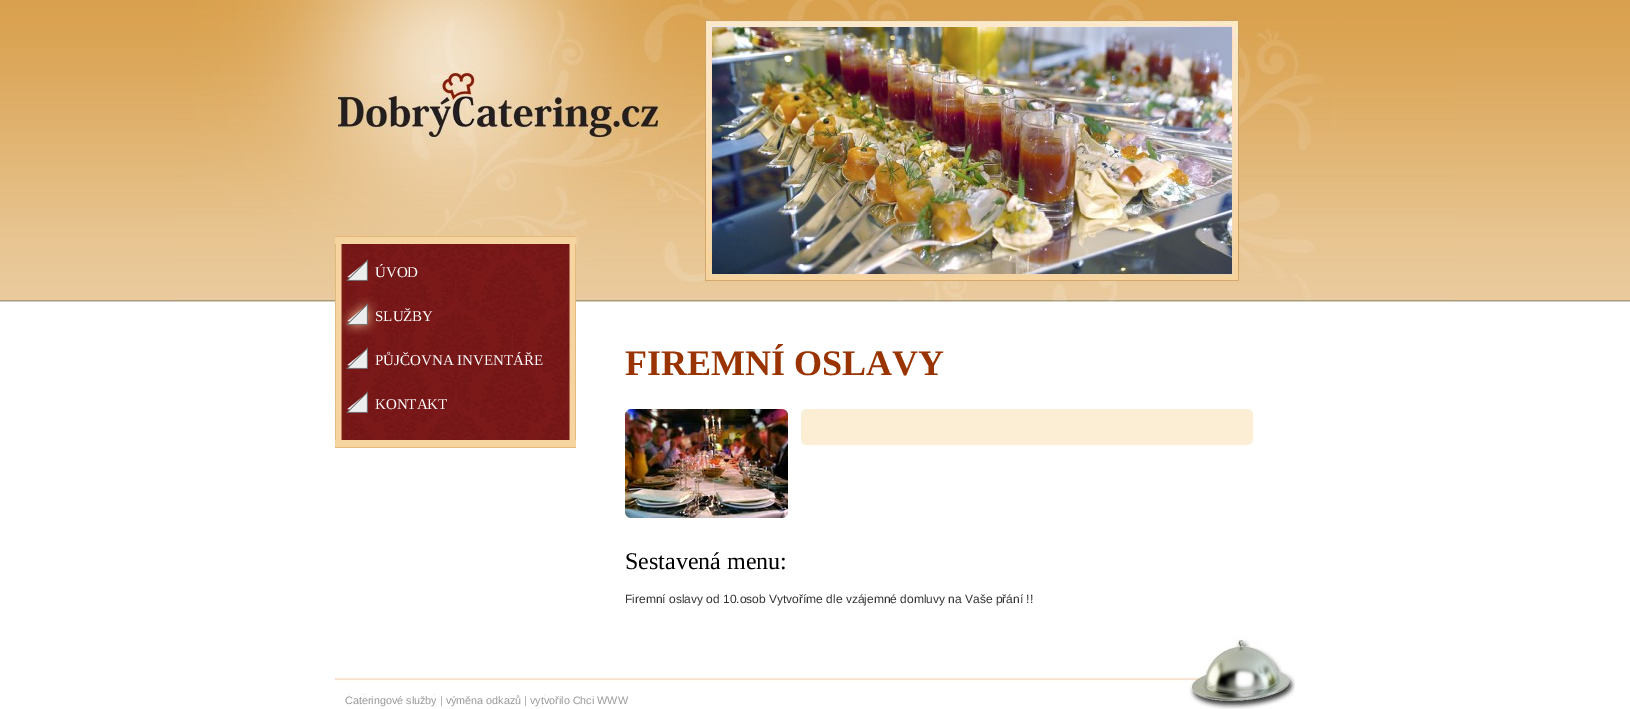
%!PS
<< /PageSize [1630 709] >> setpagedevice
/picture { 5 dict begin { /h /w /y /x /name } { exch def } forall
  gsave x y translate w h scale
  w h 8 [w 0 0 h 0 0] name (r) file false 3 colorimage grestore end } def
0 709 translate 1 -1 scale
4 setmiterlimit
1 setgray
0 0 1630 709 rectfill
(img1.rgb) 0 0 1630 302 picture
(img2.rgb) 175 0 1280 302 picture
(img3.rgb) 335 70 328 71 picture
(img4.rgb) 705 20 534 261 picture
(img5.rgb) 712 27 520 247 picture
(img6.rgb) 335 244 241 196 picture
0.886 0.725 0.482 setrgbcolor
335 236 241 1 rectfill
335 447 241 1 rectfill
0.965 0.831 0.624 setrgbcolor
335 237 241 7 rectfill
335 440 241 7 rectfill
(img7.rgb) 346 259 22 22 picture
/LiberationSerif-Regular [15 0 0 -15 0 0] selectfont
1 setgray
375 277 moveto (ÚVOD) show
(img8.rgb) 341 297 37 38 picture
375 321 moveto (SLUŽBY) show
(img9.rgb) 346 347 22 22 picture
375 365 moveto (PŮJČOVNA INVENTÁŘE) show
(img10.rgb) 346 391 22 22 picture
375 409 moveto (KONTAKT) show
/LiberationSerif-Bold [36 0 0 -36 0 0] selectfont
0.6 0.2 0 setrgbcolor
625 375 moveto (FIREMNÍ OSLAVY) show
(img11.rgb) 625 409 163 109 picture
(img12.rgb) 625 409 5 5 picture
(img13.rgb) 783 409 5 5 picture
(img14.rgb) 783 513 5 5 picture
(img15.rgb) 625 513 5 5 picture
0.988 0.929 0.835 setrgbcolor
801 416 452 21 rectfill
(img16.rgb) 801 409 452 7 picture
(img17.rgb) 801 437 452 8 picture
/LiberationSerif-Regular [24 0 0 -24 0 0] selectfont
0 setgray
625 569 moveto (Sestavená menu:) show
/LiberationSans-Regular [12 0 0 -12 0 0] selectfont
0.2 setgray
625 603 moveto (Firemní oslavy od 10.osob Vytvoříme dle vzájemné domluvy na Vaše přání !!) show
(img18.rgb) 335 636 960 73 picture
/LiberationSans-Regular [10.8 0 0 -10.8 0 0] selectfont
0.6 setgray
345 704 moveto (Cateringové služby | výměna odkazů | vytvořilo Chci WWW) show
showpage
